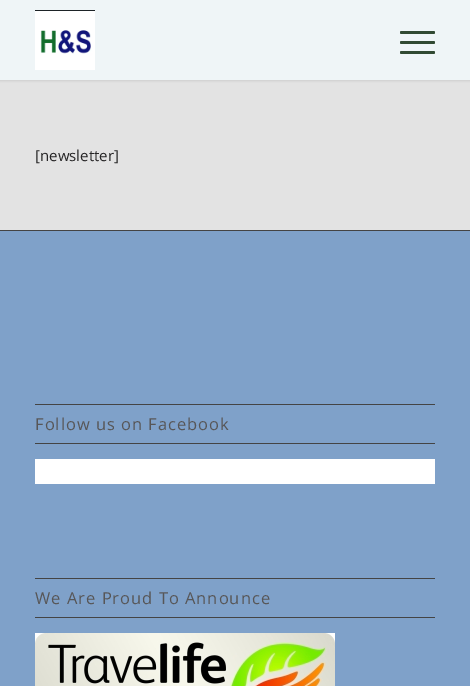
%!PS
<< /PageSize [470 686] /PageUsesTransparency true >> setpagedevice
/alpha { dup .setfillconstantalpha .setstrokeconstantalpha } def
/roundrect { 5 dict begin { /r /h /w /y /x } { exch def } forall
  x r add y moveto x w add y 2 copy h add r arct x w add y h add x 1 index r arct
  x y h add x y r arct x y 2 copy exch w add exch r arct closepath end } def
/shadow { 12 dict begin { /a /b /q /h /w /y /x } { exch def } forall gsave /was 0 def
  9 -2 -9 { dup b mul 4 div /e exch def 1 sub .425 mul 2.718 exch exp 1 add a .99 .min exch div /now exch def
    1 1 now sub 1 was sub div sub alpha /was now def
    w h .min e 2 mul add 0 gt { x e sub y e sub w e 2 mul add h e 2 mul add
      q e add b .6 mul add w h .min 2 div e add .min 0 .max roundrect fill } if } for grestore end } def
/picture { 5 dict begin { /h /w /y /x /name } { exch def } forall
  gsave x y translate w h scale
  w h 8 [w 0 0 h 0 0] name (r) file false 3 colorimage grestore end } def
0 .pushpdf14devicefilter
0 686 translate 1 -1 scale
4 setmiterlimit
0.89 setgray
0 0 470 686 rectfill
0 setgray
-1 -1 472 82 0 1 0.1 shadow
0.937 0.961 0.969 setrgbcolor
0 0 470 80 rectfill
(img1.rgb) 35 10 60 60 picture
0.192 0.29 0.2 setrgbcolor
400 41 35 3 1.5 roundrect fill
400 31 35 3 1.5 roundrect fill
400 51 35 3 1.5 roundrect fill
/OpenSans-Regular [15 0 0 -15 0 0] selectfont
0.149 0.145 0.149 setrgbcolor
35 161 moveto ([newsletter]) show
0.498 0.631 0.788 setrgbcolor
0 231 470 455 rectfill
0.267 setgray
0 230 470 1 rectfill
35 404 400 1 rectfill
35 443 400 1 rectfill
/OpenSans-Regular [16.5 0 0 -16.5 0 0] selectfont
0.341 0.337 0.341 setrgbcolor
35 430 moveto 1 0 (Follow us on Facebook) ashow
1 setgray
35 459 400 25 rectfill
0.267 setgray
35 578 400 1 rectfill
35 617 400 1 rectfill
0.341 0.337 0.341 setrgbcolor
35 604 moveto 1 0 (We Are Proud To Announce) ashow
(img2.rgb) 35 633 300 53 picture
.poppdf14devicefilter showpage
